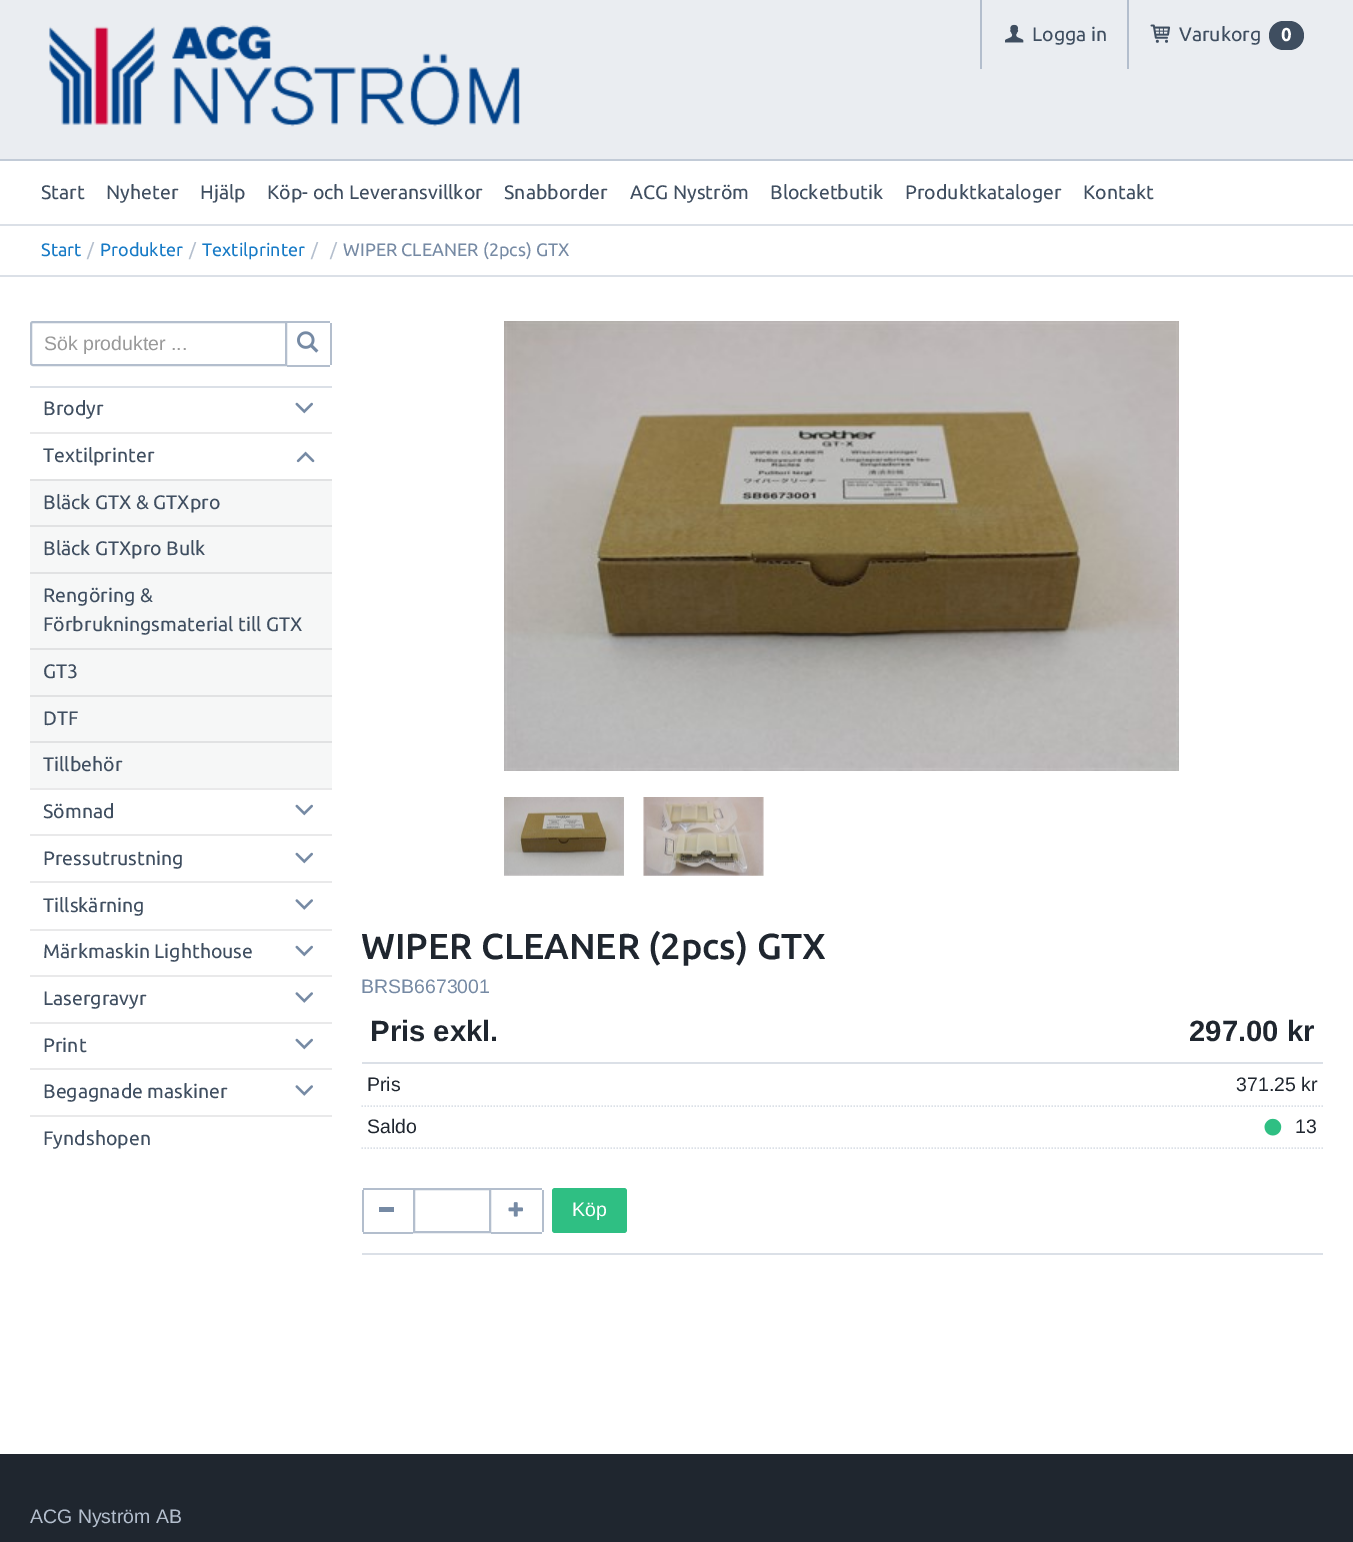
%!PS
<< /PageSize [1353 1542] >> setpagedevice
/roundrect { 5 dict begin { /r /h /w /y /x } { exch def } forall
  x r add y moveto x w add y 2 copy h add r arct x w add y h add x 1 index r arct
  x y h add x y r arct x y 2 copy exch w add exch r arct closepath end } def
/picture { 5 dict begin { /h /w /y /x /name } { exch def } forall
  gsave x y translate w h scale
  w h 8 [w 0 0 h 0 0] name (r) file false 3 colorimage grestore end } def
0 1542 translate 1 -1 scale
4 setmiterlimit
1 setgray
0 0 1353 1542 rectfill
0.918 0.929 0.945 setrgbcolor
0 0 1353 159 rectfill
0.761 0.796 0.843 setrgbcolor
0 159 1353 2 rectfill
(img1.rgb) 49 25 471 102 picture
0.702 0.745 0.804 setrgbcolor
980 0 2 69 rectfill
(img2.rgb) 1005 24 19 19 picture
/Ubuntu-Regular [19.5 0 0 -19.5 0 0] selectfont
0.247 0.306 0.376 setrgbcolor
1032 41 moveto (Logga in) show
0.702 0.745 0.804 setrgbcolor
1127 0 2 69 rectfill
(img3.rgb) 1150 24 21 19 picture
0.247 0.306 0.376 setrgbcolor
1179 41 moveto (Varukorg) show
1269 21 35 29 14.5 roundrect fill
/Ubuntu-Bold [18 0 0 -18 0 0] selectfont
1 setgray
1281 41 moveto (0) show
0.859 0.878 0.906 setrgbcolor
0 224 1353 2 rectfill
/Ubuntu-Regular [19.5 0 0 -19.5 0 0] selectfont
0.247 0.306 0.376 setrgbcolor
41 199 moveto (Start) show
106 199 moveto (Nyheter) show
200 199 moveto (Hjälp) show
267 199 moveto (Köp- och Leveransvillkor) show
504 199 moveto (Snabborder) show
630 199 moveto (ACG Nyström) show
770 199 moveto (Blocketbutik) show
905 199 moveto (Produktkataloger) show
1083 199 moveto (Kontakt) show
0.859 0.878 0.906 setrgbcolor
0 275 1353 2 rectfill
/Ubuntu-Regular [18 0 0 -18 0 0] selectfont
0.086 0.478 0.776 setrgbcolor
41 256 moveto (Start) show
0.702 0.745 0.804 setrgbcolor
87 256 moveto (/) show
0.086 0.478 0.776 setrgbcolor
100 256 moveto (Produkter) show
0.702 0.745 0.804 setrgbcolor
189 256 moveto (/) show
0.086 0.478 0.776 setrgbcolor
202 256 moveto (Textilprinter) show
0.702 0.745 0.804 setrgbcolor
311 256 moveto (/) show
330 256 moveto (/) show
0.463 0.541 0.643 setrgbcolor
343 256 moveto (WIPER CLEANER \(2pcs\) GTX) show
0.702 0.745 0.804 setrgbcolor
2 setlinewidth
newpath 33 322 moveto 286 322 lineto 286 365 lineto 33 365 lineto 32 365 31 364 31 363 curveto 31 324 lineto 31 323 32 322 33 322 curveto closepath stroke
/LiberationSans-Regular [19.5 0 0 -19.5 0 0] selectfont
0.6 setgray
44 350 moveto (Sök produkter ...) show
0.702 0.745 0.804 setrgbcolor
287 321 43 2 rectfill
330 323 2 42 rectfill
287 365 43 2 rectfill
(img4.rgb) 297 331 22 22 picture
0.859 0.878 0.906 setrgbcolor
30 386 302 2 rectfill
0.914 0.914 0.918 setrgbcolor
30 432 302 2 rectfill
/Ubuntu-Regular [19.5 0 0 -19.5 0 0] selectfont
0.247 0.306 0.376 setrgbcolor
43 415 moveto (Brodyr) show
(img5.rgb) 295 402 18 12 picture
0.914 0.914 0.918 setrgbcolor
30 788 302 2 rectfill
0.247 0.306 0.376 setrgbcolor
43 462 moveto (Textilprinter) show
(img6.rgb) 296 451 19 12 picture
0.965 0.969 0.969 setrgbcolor
30 481 302 307 rectfill
0.882 0.886 0.89 setrgbcolor
30 479 302 2 rectfill
30 525 302 2 rectfill
0.247 0.306 0.376 setrgbcolor
43 509 moveto (Bläck GTX & GTXpro) show
0.882 0.886 0.89 setrgbcolor
30 572 302 2 rectfill
0.247 0.306 0.376 setrgbcolor
43 555 moveto (Bläck GTXpro Bulk) show
0.882 0.886 0.89 setrgbcolor
30 648 302 2 rectfill
0.247 0.306 0.376 setrgbcolor
43 602 moveto (Rengöring &) show
43 631 moveto (Förbrukningsmaterial till GTX) show
0.882 0.886 0.89 setrgbcolor
30 695 302 2 rectfill
0.247 0.306 0.376 setrgbcolor
43 678 moveto (GT3) show
0.882 0.886 0.89 setrgbcolor
30 741 302 2 rectfill
0.247 0.306 0.376 setrgbcolor
43 725 moveto (DTF) show
43 771 moveto (Tillbehör) show
0.914 0.914 0.918 setrgbcolor
30 834 302 2 rectfill
0.247 0.306 0.376 setrgbcolor
43 818 moveto (Sömnad) show
(img5.rgb) 295 804 18 12 picture
0.914 0.914 0.918 setrgbcolor
30 881 302 2 rectfill
0.247 0.306 0.376 setrgbcolor
43 865 moveto (Pressutrustning) show
(img5.rgb) 295 852 18 12 picture
0.914 0.914 0.918 setrgbcolor
30 929 302 2 rectfill
0.247 0.306 0.376 setrgbcolor
43 912 moveto (Tillskärning) show
(img7.rgb) 295 899 18 11 picture
0.914 0.914 0.918 setrgbcolor
30 975 302 2 rectfill
0.247 0.306 0.376 setrgbcolor
43 958 moveto (Märkmaskin Lighthouse) show
(img5.rgb) 295 945 18 12 picture
0.914 0.914 0.918 setrgbcolor
30 1022 302 2 rectfill
0.247 0.306 0.376 setrgbcolor
43 1005 moveto (Lasergravyr) show
(img7.rgb) 295 992 18 11 picture
0.914 0.914 0.918 setrgbcolor
30 1068 302 2 rectfill
0.247 0.306 0.376 setrgbcolor
43 1052 moveto (Print) show
(img5.rgb) 295 1038 18 12 picture
0.914 0.914 0.918 setrgbcolor
30 1115 302 2 rectfill
0.247 0.306 0.376 setrgbcolor
43 1098 moveto (Begagnade maskiner) show
(img7.rgb) 295 1085 18 11 picture
43 1145 moveto (Fyndshopen) show
(img8.rgb) 504 321 675 450 picture
(img9.rgb) 504 797 120 79 picture
(img10.rgb) 643 797 121 79 picture
/Ubuntu-Medium [36.1 0 0 -36.1 0 0] selectfont
0.122 0.149 0.184 setrgbcolor
361 959 moveto (WIPER CLEANER \(2pcs\) GTX) show
/LiberationSans-Regular [19.5 0 0 -19.5 0 0] selectfont
0.463 0.541 0.643 setrgbcolor
361 993 moveto (BRSB6673001) show
0.859 0.878 0.906 setrgbcolor
362 1062 961 2 rectfill
/LiberationSans-Bold [29.25 0 0 -29.25 0 0] selectfont
0.122 0.149 0.184 setrgbcolor
370 1041 moveto (Pris exkl.) show
1189 1041 moveto (297.00 kr) show
0.859 0.878 0.906 setrgbcolor
1.5 setlinewidth
[1.5 1.5] 0 setdash
newpath 361.5 1106 moveto 1323 1106 lineto stroke
/LiberationSans-Regular [19.5 0 0 -19.5 0 0] selectfont
0.122 0.149 0.184 setrgbcolor
367 1091 moveto (Pris) show
1236 1091 moveto (371.25 kr) show
0.859 0.878 0.906 setrgbcolor
newpath 361.5 1148 moveto 1323 1148 lineto stroke
0.122 0.149 0.184 setrgbcolor
367 1133 moveto (Saldo) show
(img11.rgb) 1264 1118 18 18 picture
1295 1133 moveto (13) show
0.859 0.878 0.906 setrgbcolor
362 1253 961 2 rectfill
0.702 0.745 0.804 setrgbcolor
363 1188 50 2 rectfill
363 1232 50 2 rectfill
362 1190 2 42 rectfill
0.463 0.541 0.643 setrgbcolor
379 1207 15 5 rectfill
0.702 0.745 0.804 setrgbcolor
2 setlinewidth
[] 0 setdash
414 1189 76 43 rectstroke
491 1188 51 2 rectfill
542 1190 2 42 rectfill
491 1232 51 2 rectfill
(img12.rgb) 508 1202 15 15 picture
0.184 0.749 0.514 setrgbcolor
552 1188 75 45 3 roundrect fill
1 setgray
572 1216 moveto (Köp) show
0.122 0.149 0.184 setrgbcolor
0 1454 1353 88 rectfill
0.702 0.745 0.804 setrgbcolor
30 1523 moveto (ACG Nyström AB) show
showpage
